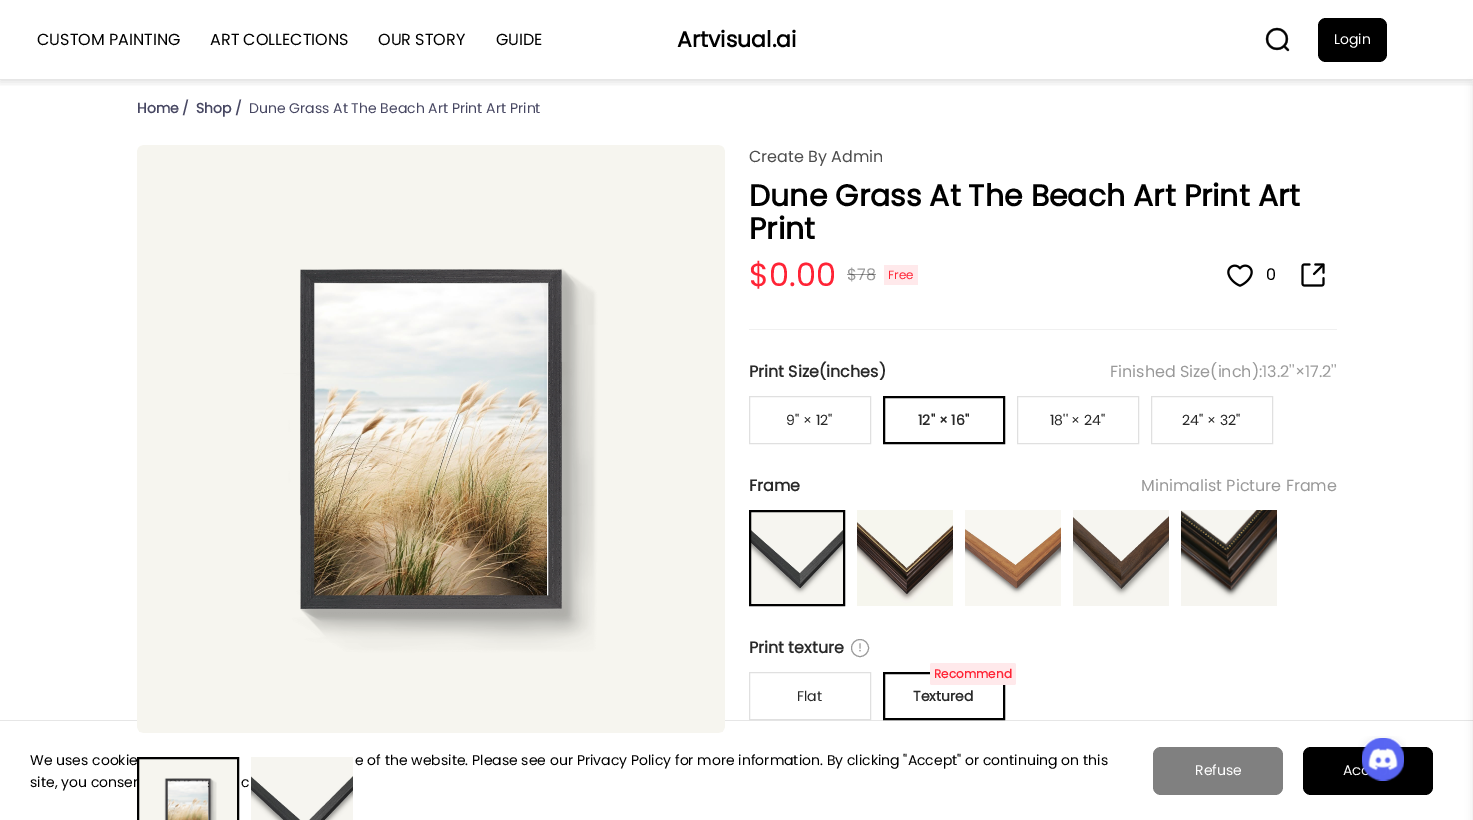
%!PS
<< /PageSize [1473 820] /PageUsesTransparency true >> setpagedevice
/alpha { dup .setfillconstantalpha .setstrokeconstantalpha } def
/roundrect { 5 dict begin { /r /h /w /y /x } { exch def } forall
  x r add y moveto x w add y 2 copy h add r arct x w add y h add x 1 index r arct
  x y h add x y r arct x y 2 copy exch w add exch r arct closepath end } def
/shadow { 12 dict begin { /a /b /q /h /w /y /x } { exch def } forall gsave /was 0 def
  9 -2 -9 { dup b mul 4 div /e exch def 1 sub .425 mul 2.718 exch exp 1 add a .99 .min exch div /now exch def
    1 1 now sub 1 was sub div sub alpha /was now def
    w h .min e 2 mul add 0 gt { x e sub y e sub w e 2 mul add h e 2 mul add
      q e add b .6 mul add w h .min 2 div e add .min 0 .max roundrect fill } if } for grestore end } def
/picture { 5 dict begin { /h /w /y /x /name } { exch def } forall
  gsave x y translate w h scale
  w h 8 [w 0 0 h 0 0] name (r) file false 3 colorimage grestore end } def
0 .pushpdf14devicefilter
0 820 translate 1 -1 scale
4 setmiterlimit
1 setgray
0 0 1473 820 rectfill
gsave
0 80 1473 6 rectclip
0 setgray
0 2 1473 80 0 4 0.12 shadow
grestore
0.902 setgray
0 79 1473 1 rectfill
/Poppins-Regular [16 0 0 -16 0 0] selectfont
0 setgray
37 45 moveto (CUSTOM PAINTING) show
210 45 moveto (ART COLLECTIONS) show
378 45 moveto (OUR STORY) show
496 45 moveto (GUIDE) show
/Poppins-Bold [22 0 0 -22 0 0] selectfont
677 47 moveto (Artvisual.ai) show
(img1.rgb) 1265 27 25 25 picture
1318 18 69 44 8 roundrect fill
/Poppins-Regular [14 0 0 -14 0 0] selectfont
1 setgray
1334 44 moveto (Login) show
/Poppins-Bold [14 0 0 -14 0 0] selectfont
0.278 0.278 0.384 setrgbcolor
137 113 moveto (Home /) show
196 113 moveto (Shop /) show
/Poppins-Regular [14 0 0 -14 0 0] selectfont
249 113 moveto (Dune Grass At The Beach Art Print Art Print) show
(img3.rgb) 314 282 233 314 picture
0.902 setgray
0 720 1473 1 rectfill
(img2.rgb) 137 145 588 588 picture
(img5.rgb) 167 780 41 40 picture
0 setgray
30 787 moveto (site, you consen) show
(img4.rgb) 139 759 98 61 picture
2 setlinewidth
138 758 100 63 rectstroke
(img6.rgb) 251 757 102 63 picture
/Poppins-Regular [16 0 0 -16 0 0] selectfont
0.302 setgray
749 162 moveto (Create By Admin) show
/Poppins-Bold [30 0 0 -30 0 0] selectfont
0 setgray
749 206 moveto (Dune Grass At The Beach Art Print Art) show
749 239 moveto (Print) show
/Poppins-Regular [32 0 0 -32 0 0] selectfont
1 0.141 0.212 setrgbcolor
749 286 moveto ($0.00) show
/Poppins-Regular [16 0 0 -16 0 0] selectfont
0.6 setgray
847 280 moveto ($78) show
0.4 alpha
0 setgray
847 274 29 1 rectfill
1 alpha
1 0.914 0.922 setrgbcolor
884 265 34 20 rectfill
/Poppins-Regular [12 0 0 -12 0 0] selectfont
1 0.141 0.212 setrgbcolor
888 279 moveto (Free) show
(img7.rgb) 1227 264 26 23 picture
/Poppins-Regular [16 0 0 -16 0 0] selectfont
0 setgray
1266 280 moveto (0) show
(img8.rgb) 1301 263 24 24 picture
0.941 setgray
749 329 588 1 rectfill
/Poppins-Bold [16 0 0 -16 0 0] selectfont
0.161 setgray
749 377 moveto (Print Size\(inches\)) show
/Poppins-Regular [16 0 0 -16 0 0] selectfont
0.6 setgray
1110 377 moveto (Finished Size\(inch\):13.2''×17.2'') show
0.878 setgray
1 setlinewidth
749.5 396.5 121 47 rectstroke
/Poppins-Regular [14 0 0 -14 0 0] selectfont
0.161 setgray
786 425 moveto (9'' × 12'') show
0 setgray
2 setlinewidth
884 397 120 46 rectstroke
/Poppins-Bold [14 0 0 -14 0 0] selectfont
0.161 setgray
918 425 moveto (12'' × 16'') show
0.878 setgray
1 setlinewidth
1017.5 396.5 121 47 rectstroke
/Poppins-Regular [14 0 0 -14 0 0] selectfont
0.161 setgray
1050 425 moveto (18'' × 24'') show
0.878 setgray
1151.5 396.5 121 47 rectstroke
0.161 setgray
1182 425 moveto (24'' × 32'') show
/Poppins-Bold [16 0 0 -16 0 0] selectfont
749 491 moveto (Frame) show
/Poppins-Regular [16 0 0 -16 0 0] selectfont
0.6 setgray
1141 491 moveto (Minimalist Picture Frame) show
(img9.rgb) 751 512 92 92 picture
0 setgray
2 setlinewidth
750 511 94 94 rectstroke
(img10.rgb) 857 510 96 96 picture
(img11.rgb) 965 510 96 96 picture
(img12.rgb) 1073 510 96 96 picture
(img13.rgb) 1181 510 96 96 picture
/Poppins-Bold [16 0 0 -16 0 0] selectfont
0.161 setgray
749 653 moveto (Print texture) show
(img14.rgb) 859 643 2 9 picture
0.6 setgray
1 setlinewidth
newpath 860 648 8.5 0 360 arc closepath stroke
0.878 setgray
749.5 672.5 121 47 rectstroke
/Poppins-Regular [14 0 0 -14 0 0] selectfont
0.161 setgray
797 701 moveto (Flat) show
0 setgray
2 setlinewidth
884 673 120 46 rectstroke
1 0.914 0.922 setrgbcolor
930 663 86 22 2 roundrect fill
/Poppins-Bold [12 0 0 -12 0 0] selectfont
1 0.141 0.212 setrgbcolor
934 678 moveto (Recommend) show
/Poppins-Bold [14 0 0 -14 0 0] selectfont
0.161 setgray
913 701 moveto (Textured) show
0 setgray
1473 84 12 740 0 4 0.1 shadow
1303 747 130 48 8 roundrect fill
/Poppins-Regular [14 0 0 -14 0 0] selectfont
1 setgray
1343 775 moveto (Acc) show
(img15.rgb) 1358 736 48 45 picture
0 setgray
30 765 moveto (We uses cookie) show
355 765 moveto (e of the website. Please see our Privacy Policy for more information. By clicking "Accept" or continuing on this) show
241 787 moveto (c) show
0.502 setgray
1153 747 130 48 8 roundrect fill
1 setgray
1195 775 moveto (Refuse) show
.poppdf14devicefilter showpage
